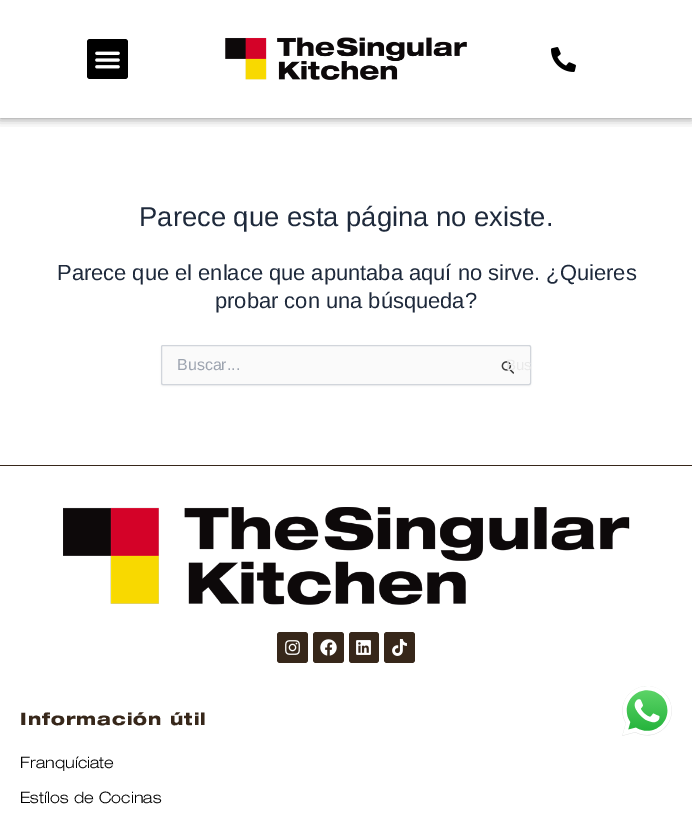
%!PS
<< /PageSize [692 816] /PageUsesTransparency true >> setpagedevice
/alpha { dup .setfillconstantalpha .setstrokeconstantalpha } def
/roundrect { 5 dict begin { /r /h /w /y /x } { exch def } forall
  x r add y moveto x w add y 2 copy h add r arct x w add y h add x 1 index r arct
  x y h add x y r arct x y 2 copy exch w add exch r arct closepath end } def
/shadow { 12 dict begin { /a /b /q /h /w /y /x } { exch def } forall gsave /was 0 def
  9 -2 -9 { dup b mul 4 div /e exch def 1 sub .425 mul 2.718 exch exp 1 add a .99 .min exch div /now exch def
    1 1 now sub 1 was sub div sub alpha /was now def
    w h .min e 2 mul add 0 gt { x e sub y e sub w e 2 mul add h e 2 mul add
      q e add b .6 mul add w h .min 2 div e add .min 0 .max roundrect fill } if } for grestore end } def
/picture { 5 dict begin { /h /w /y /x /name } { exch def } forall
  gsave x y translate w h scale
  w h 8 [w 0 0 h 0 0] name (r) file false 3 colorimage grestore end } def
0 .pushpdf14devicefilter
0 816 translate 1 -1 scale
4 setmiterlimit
1 setgray
0 0 692 816 rectfill
gsave
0 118 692 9 rectclip
0 setgray
0 0 692 118 0 5 0.5 shadow
grestore
0 setgray
87 39 41 40 3 roundrect fill
(img1.rgb) 95 51 25 18 picture
(img2.rgb) 225 37 242 43 picture
(img3.rgb) 551 47 25 25 picture
/LiberationSans-Regular [27.4 0 0 -27.4 0 0] selectfont
0.118 0.161 0.231 setrgbcolor
139 226 moveto (Parece que esta página no existe.) show
/LiberationSans-Regular [21.9 0 0 -21.9 0 0] selectfont
57 280 moveto (Parece que el enlace que apuntaba aquí no sirve. ¿Quieres) show
215 308 moveto (probar con una búsqueda?) show
0 setgray
161 346 370 40 2 1 0.05 shadow
0.98 setgray
161.5 345.5 369 39 1.5 roundrect gsave fill grestore
0.82 0.835 0.859 setrgbcolor
stroke
/LiberationSans-Regular [16 0 0 -16 0 0] selectfont
0.612 0.639 0.686 setrgbcolor
177 370 moveto (Buscar...) show
(img4.rgb) 501 361 13 13 picture
/LiberationSans-Regular [15 0 0 -15 0 0] selectfont
0.914 setgray
506 370 moveto (Bus) show
0.216 0.153 0.102 setrgbcolor
0 465 692 1 rectfill
(img5.rgb) 63 507 567 98 picture
277 632 31 31 3 roundrect fill
(img6.rgb) 285 640 15 15 picture
313 632 31 31 3 roundrect fill
(img7.rgb) 320 639 17 17 picture
349 632 30 31 3 roundrect fill
(img8.rgb) 356 640 15 15 picture
384 632 31 31 3 roundrect fill
(img9.rgb) 392 639 15 17 picture
/HelveticaNeue-Bold [17 0 0 -17 0 0] selectfont
20 725 moveto 1 0 (Información útil) ashow
/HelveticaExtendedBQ-ExtraLight [16 0 0 -16 0 0] selectfont
0 setgray
20 768 moveto (Franquíciate) show
20 803 moveto (Estílos de Cocinas) show
(img10.rgb) 622 686 50 50 picture
.poppdf14devicefilter showpage
